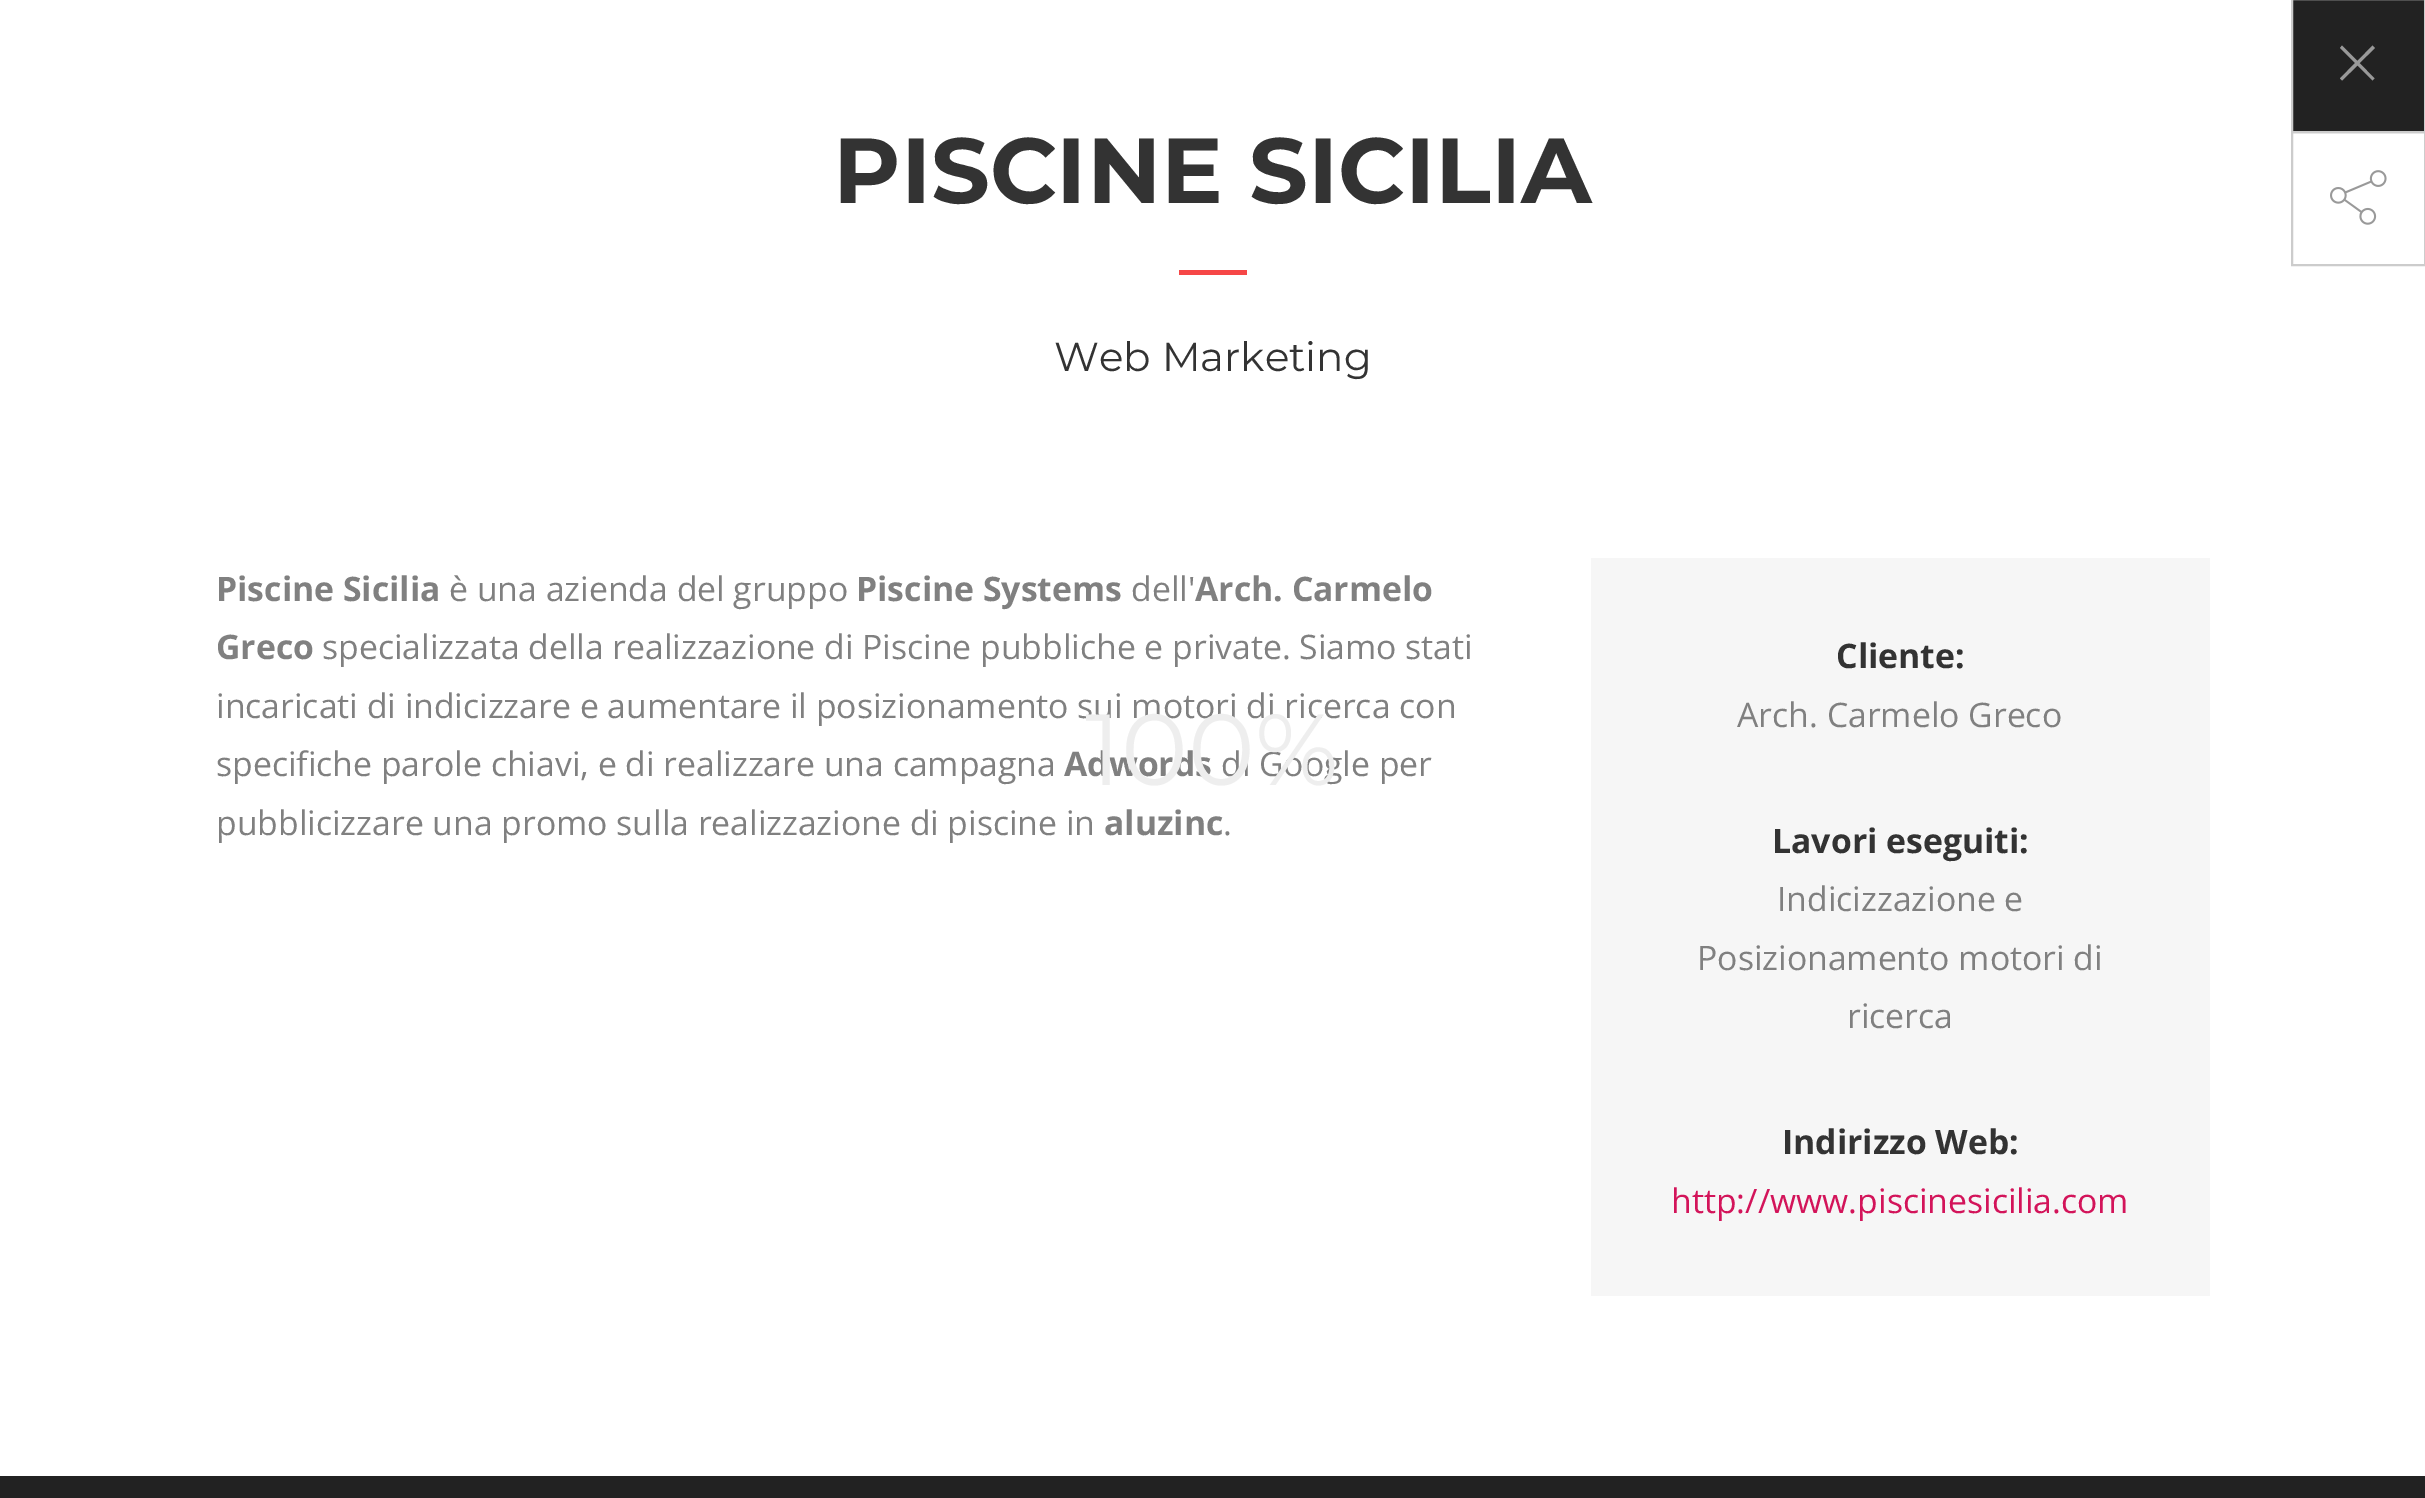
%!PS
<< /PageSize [2425 1498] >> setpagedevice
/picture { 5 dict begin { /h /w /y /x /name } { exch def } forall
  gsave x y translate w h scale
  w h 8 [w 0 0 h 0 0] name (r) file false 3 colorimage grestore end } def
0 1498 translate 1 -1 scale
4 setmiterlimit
1 setgray
0 0 2425 1498 rectfill
/Montserrat-Bold [92.25 0 0 -92.25 0 0] selectfont
0.2 setgray
833 203 moveto (PISCINE SICILIA) show
0.965 0.278 0.278 setrgbcolor
1179 270 68 5 rectfill
0.133 setgray
newpath 2292 -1 moveto 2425 -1 lineto 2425 132 lineto 2292 132 lineto closepath gsave fill grestore
0.8 setgray
2 setlinewidth
stroke
0.6 setgray
newpath 2342 45.5 moveto 2340 48 lineto 2355 63 lineto 2340 78.5 lineto 2342 80.5 lineto 2357.5 65.5 lineto 2372.5 80.5 lineto 2374.5 78.5 lineto 2359.5 63 lineto 2375 48 lineto 2372.5 45.5 lineto 2357.5 61 lineto closepath fill
0.8 setgray
2292 132 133 133 rectstroke
(img1.rgb) 2330 170 57 55 picture
/Montserrat-Regular [40.5 0 0 -40.5 0 0] selectfont
0.2 setgray
1054 371 moveto (Web Marketing) show
/OpenSans-Bold [33.75 0 0 -33.75 0 0] selectfont
0.502 setgray
216 601 moveto (Piscine Sicilia) show
/OpenSans-Regular [33.75 0 0 -33.75 0 0] selectfont
449 601 moveto (è una azienda del gruppo) show
/OpenSans-Bold [33.75 0 0 -33.75 0 0] selectfont
856 601 moveto (Piscine Systems) show
/OpenSans-Regular [33.75 0 0 -33.75 0 0] selectfont
1131 601 moveto (dell') show
/OpenSans-Bold [33.75 0 0 -33.75 0 0] selectfont
1195 601 moveto (Arch. Carmelo) show
216 659 moveto (Greco) show
/OpenSans-Regular [33.75 0 0 -33.75 0 0] selectfont
322 659 moveto (specializzata della realizzazione di Piscine pubbliche e private. Siamo stati) show
216 718 moveto (incaricati di indicizzare e aumentare il posizionamento sui motori di ricerca con) show
216 776 moveto (specifiche parole chiavi, e di realizzare una campagna) show
/OpenSans-Bold [33.75 0 0 -33.75 0 0] selectfont
1064 776 moveto (Adwords) show
/OpenSans-Regular [33.75 0 0 -33.75 0 0] selectfont
1221 776 moveto (di Google per) show
216 835 moveto (pubblicizzare una promo sulla realizzazione di piscine in) show
/OpenSans-Bold [33.75 0 0 -33.75 0 0] selectfont
1104 835 moveto (aluzinc) show
/OpenSans-Regular [33.75 0 0 -33.75 0 0] selectfont
1223 835 moveto (.) show
0.965 setgray
1591 558 619 738 rectfill
/OpenSans-Bold [33.75 0 0 -33.75 0 0] selectfont
0.2 setgray
1836 668 moveto (Cliente:) show
/OpenSans-Regular [33.75 0 0 -33.75 0 0] selectfont
0.502 setgray
1737 727 moveto (Arch. Carmelo Greco) show
/OpenSans-Bold [33.75 0 0 -33.75 0 0] selectfont
0.2 setgray
1772 853 moveto (Lavori eseguiti:) show
/OpenSans-Regular [33.75 0 0 -33.75 0 0] selectfont
0.502 setgray
1777 911 moveto (Indicizzazione e) show
1697 970 moveto (Posizionamento motori di) show
1847 1028 moveto (ricerca) show
/OpenSans-Bold [33.75 0 0 -33.75 0 0] selectfont
0.2 setgray
1782 1154 moveto (Indirizzo Web:) show
/OpenSans-Regular [33.75 0 0 -33.75 0 0] selectfont
0.827 0.078 0.353 setrgbcolor
1671 1213 moveto (http://www.piscinesicilia.com) show
/Montserrat-Regular [101 0 0 -101 0 0] selectfont
0.933 setgray
1085 785 moveto (100%) show
0.133 setgray
0 1476 2425 22 rectfill
showpage
